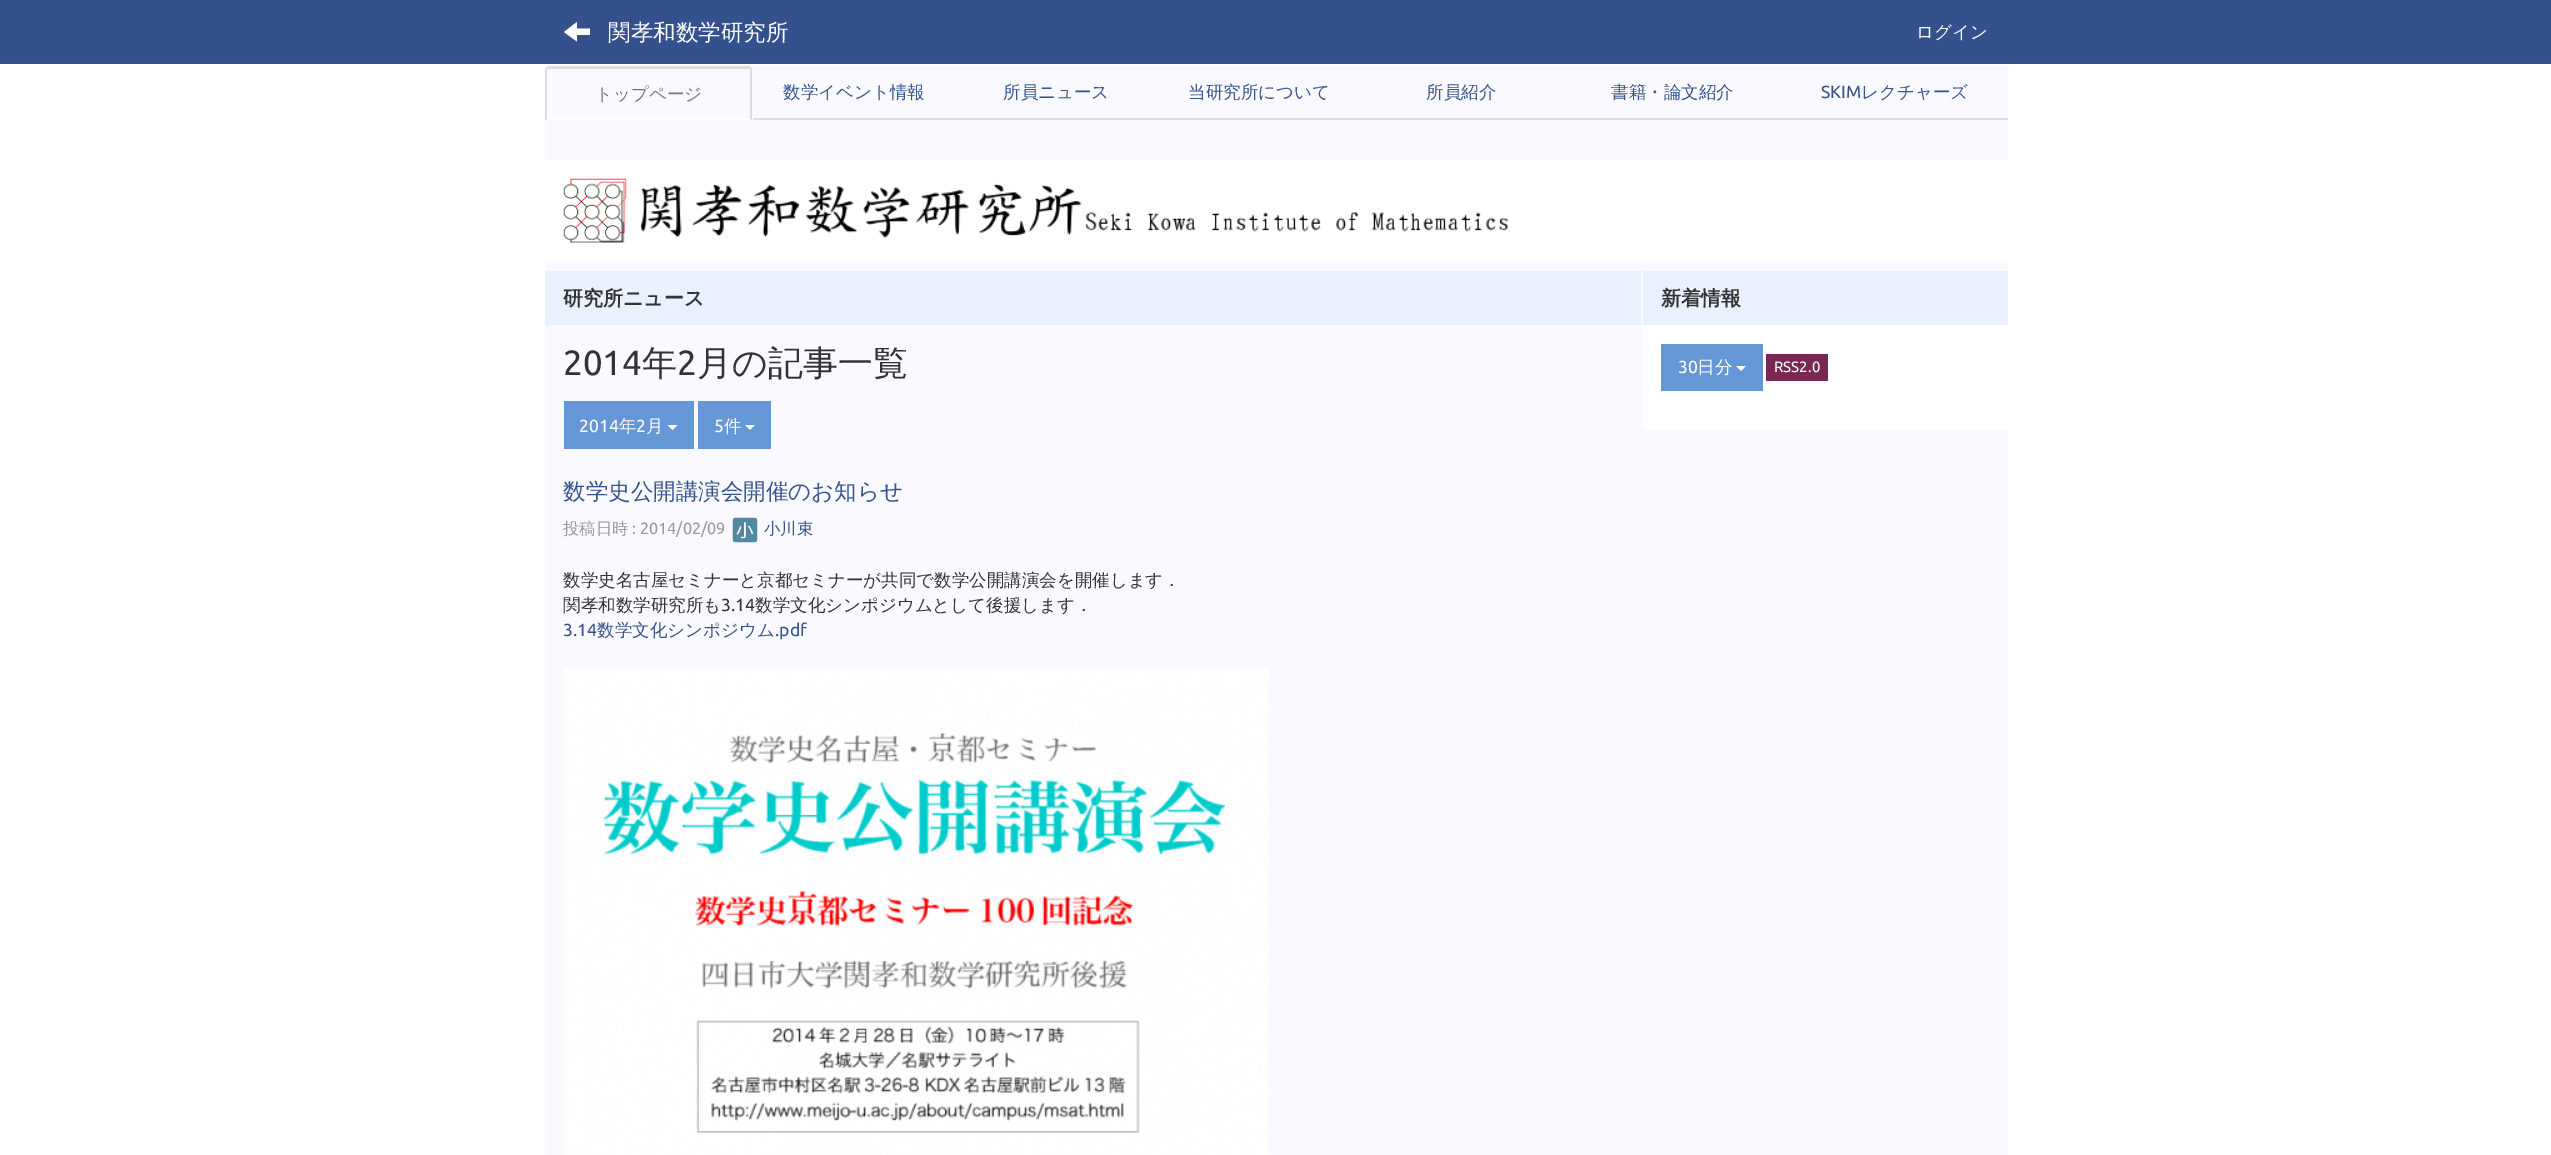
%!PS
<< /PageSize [2551 1155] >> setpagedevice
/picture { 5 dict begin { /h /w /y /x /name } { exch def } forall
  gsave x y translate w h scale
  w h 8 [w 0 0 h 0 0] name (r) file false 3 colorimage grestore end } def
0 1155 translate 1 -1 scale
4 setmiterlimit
1 setgray
0 0 2551 1155 rectfill
0.2 0.322 0.553 setrgbcolor
0 0 2551 63 rectfill
0.216 0.325 0.549 setrgbcolor
0 63 2551 1 rectfill
1 setgray
newpath 564 32 moveto 577 22 lineto 577 28.5 lineto 590 28.5 lineto 590 35 lineto 577 35 lineto 577 41.5 lineto closepath fill
/WenQuanYiZenHei-Medium [22.5 0 0 -22.5 0 0] selectfont
608 40 moveto (関孝和数学研究所) show
/WenQuanYiZenHei-Medium [17.5 0 0 -17.5 0 0] selectfont
1916 38 moveto (ログイン) show
0.976 0.976 1 setrgbcolor
545 66 1463 1089 rectfill
0.867 setgray
newpath 550 66 moveto 748 66 lineto 750 66 752 68 752 71 curveto 752 120 lineto 545 120 lineto 545 71 lineto 545 68 547 66 550 66 curveto closepath 550 68 moveto 748 68 lineto 750 68 751 69 751 71 curveto 751 120 lineto 546 120 lineto 546 71 lineto 546 69 548 68 550 68 curveto closepath eofill
546 68 205 1 rectfill
750 68 1 52 rectfill
1 setgray
546 119 205 1 rectfill
0.867 setgray
546 68 1 52 rectfill
0.467 setgray
595 100 moveto (トップページ) show
0.867 setgray
753 118 202 2 rectfill
0.216 0.325 0.549 setrgbcolor
783 98 moveto (数学イベント情報) show
0.867 setgray
955 118 203 2 rectfill
0.216 0.325 0.549 setrgbcolor
1003 98 moveto (所員ニュース) show
0.867 setgray
1158 118 202 2 rectfill
0.216 0.325 0.549 setrgbcolor
1188 98 moveto (当研究所について) show
0.867 setgray
1360 118 203 2 rectfill
0.216 0.325 0.549 setrgbcolor
1426 98 moveto (所員紹介) show
0.867 setgray
1563 118 220 2 rectfill
0.216 0.325 0.549 setrgbcolor
1611 98 moveto (書籍・論文紹介) show
0.867 setgray
1783 118 225 2 rectfill
/Ubuntu-Regular [17.5 0 0 -17.5 0 0] selectfont
0.216 0.325 0.549 setrgbcolor
1821 98 moveto (SKIM) show
/WenQuanYiZenHei-Medium [17.5 0 0 -17.5 0 0] selectfont
1861 98 moveto (レクチャーズ) show
1 setgray
545 160 1463 101 rectfill
(img1.rgb) 563 178 64 65 picture
(img2.rgb) 640 183 868 55 picture
0.914 0.945 1 setrgbcolor
545 271 1096 54 rectfill
/WenQuanYiZenHei-Bold [20 0 0 -20 0 0] selectfont
0.2 setgray
563 305 moveto (研究所ニュース) show
/Ubuntu-Regular [35 0 0 -35 0 0] selectfont
563 375 moveto (2014) show
/WenQuanYiZenHei-Medium [35 0 0 -35 0 0] selectfont
642 375 moveto (年) show
/Ubuntu-Regular [35 0 0 -35 0 0] selectfont
677 375 moveto (2) show
/WenQuanYiZenHei-Medium [35 0 0 -35 0 0] selectfont
697 375 moveto (月の記事一覧) show
0.396 0.588 0.839 setrgbcolor
564 401 130 48 rectfill
/Ubuntu-Regular [17.5 0 0 -17.5 0 0] selectfont
1 setgray
579 432 moveto (2014) show
/WenQuanYiZenHei-Medium [17.5 0 0 -17.5 0 0] selectfont
619 432 moveto (年) show
/Ubuntu-Regular [17.5 0 0 -17.5 0 0] selectfont
636 432 moveto (2) show
/WenQuanYiZenHei-Medium [17.5 0 0 -17.5 0 0] selectfont
646 432 moveto (月) show
newpath 667.5 425 moveto 677.5 425 lineto 672.5 430 lineto closepath fill
0.396 0.588 0.839 setrgbcolor
698 401 73 48 rectfill
/Ubuntu-Regular [17.5 0 0 -17.5 0 0] selectfont
1 setgray
714 432 moveto (5) show
/WenQuanYiZenHei-Medium [17.5 0 0 -17.5 0 0] selectfont
724 432 moveto (件) show
newpath 745 425 moveto 755 425 lineto 750 430 lineto closepath fill
/WenQuanYiZenHei-Medium [22.5 0 0 -22.5 0 0] selectfont
0.216 0.325 0.549 setrgbcolor
563 499 moveto (数学史公開講演会開催のお知らせ) show
/WenQuanYiZenHei-Medium [16.25 0 0 -16.25 0 0] selectfont
0.6 setgray
563 534 moveto (投稿日時) show
/Ubuntu-Regular [16.25 0 0 -16.25 0 0] selectfont
632 534 moveto (: 2014/02/09) show
(img3.rgb) 732 517 26 26 picture
/WenQuanYiZenHei-Medium [16.25 0 0 -16.25 0 0] selectfont
0.216 0.325 0.549 setrgbcolor
764 534 moveto (小川束) show
/WenQuanYiZenHei-Medium [17.5 0 0 -17.5 0 0] selectfont
0.2 setgray
563 586 moveto (数学史名古屋セミナーと京都セミナーが共同で数学公開講演会を開催します．) show
563 611 moveto (関孝和数学研究所も) show
/Ubuntu-Regular [17.5 0 0 -17.5 0 0] selectfont
721 611 moveto (3.14) show
/WenQuanYiZenHei-Medium [17.5 0 0 -17.5 0 0] selectfont
755 611 moveto (数学文化シンポジウムとして後援します．) show
/Ubuntu-Regular [17.5 0 0 -17.5 0 0] selectfont
0.216 0.325 0.549 setrgbcolor
563 636 moveto (3.14) show
/WenQuanYiZenHei-Medium [17.5 0 0 -17.5 0 0] selectfont
597 636 moveto (数学文化シンポジウム) show
/Ubuntu-Regular [17.5 0 0 -17.5 0 0] selectfont
775 636 moveto (.pdf) show
(img4.rgb) 564 668 705 487 picture
1 setgray
1643 325 365 105 rectfill
0.914 0.945 1 setrgbcolor
1643 271 365 54 rectfill
/WenQuanYiZenHei-Bold [20 0 0 -20 0 0] selectfont
0.2 setgray
1661 305 moveto (新着情報) show
0.396 0.588 0.839 setrgbcolor
1661 344 102 47 rectfill
/Ubuntu-Regular [17.5 0 0 -17.5 0 0] selectfont
1 setgray
1678 373 moveto (30) show
/WenQuanYiZenHei-Medium [17.5 0 0 -17.5 0 0] selectfont
1697 373 moveto (日分) show
newpath 1736 366 moveto 1746 366 lineto 1741 371 lineto closepath fill
0.467 0.161 0.325 setrgbcolor
1766 354 62 27 rectfill
/Ubuntu-Regular [15 0 0 -15 0 0] selectfont
1 setgray
1774 372 moveto (RSS2.0) show
showpage
